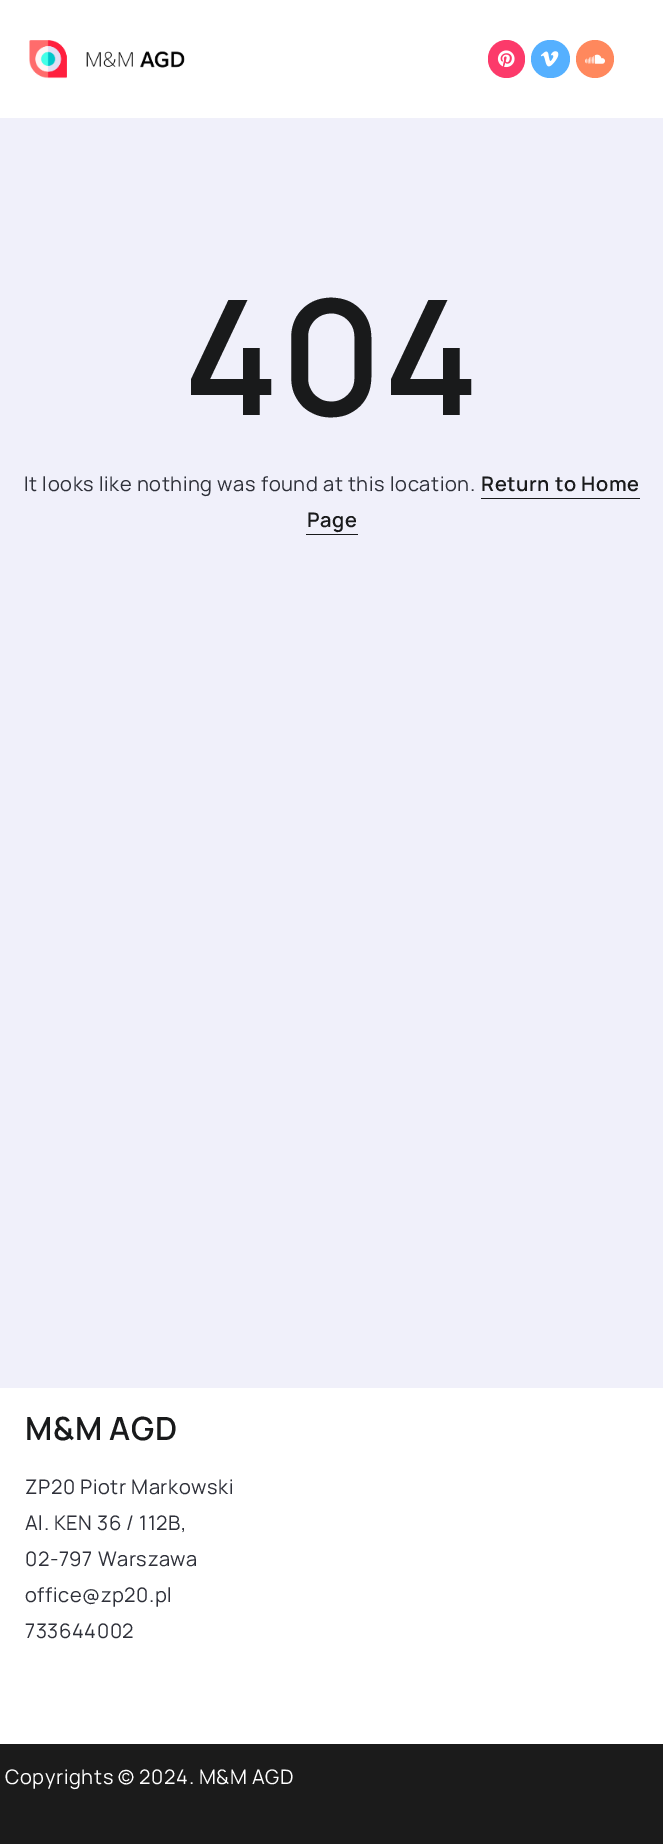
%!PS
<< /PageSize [663 1844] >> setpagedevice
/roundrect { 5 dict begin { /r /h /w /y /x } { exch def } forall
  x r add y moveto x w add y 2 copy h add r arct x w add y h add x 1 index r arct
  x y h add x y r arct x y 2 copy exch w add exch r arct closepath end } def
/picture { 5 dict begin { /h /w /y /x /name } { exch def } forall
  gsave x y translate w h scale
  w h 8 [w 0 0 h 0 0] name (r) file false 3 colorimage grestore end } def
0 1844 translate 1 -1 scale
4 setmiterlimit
0.941 0.941 0.98 setrgbcolor
0 0 663 1844 rectfill
1 setgray
0 0 663 118 rectfill
(img1.rgb) 29 40 156 39 picture
0.988 0.227 0.416 setrgbcolor
488 40 37 38 18.5 roundrect fill
(img2.rgb) 497 50 18 18 picture
0.333 0.69 1 setrgbcolor
531 40 39 38 19 roundrect fill
(img3.rgb) 540 51 19 16 picture
1 0.533 0.365 setrgbcolor
newpath 595 59 19 0 360 arc closepath fill
(img4.rgb) 585 54 20 10 picture
/Manrope-SemiBold [160 0 0 -160 0 0] selectfont
0.098 0.102 0.106 setrgbcolor
183 415 moveto 0.6 0 (404) ashow
/Manrope-Regular [20 0 0 -20 0 0] selectfont
0.18 0.188 0.224 setrgbcolor
24 491 moveto 0.6 0 (It looks like nothing was found at this location.) ashow
/Manrope-SemiBold [20 0 0 -20 0 0] selectfont
0.098 0.102 0.106 setrgbcolor
481 491 moveto 0.6 0 (Return to Home) ashow
481 498 159 1 rectfill
307 527 moveto 0.6 0 (Page) ashow
306 534 52 1 rectfill
1 setgray
0 1388 663 356 rectfill
/Manrope-SemiBold [32 0 0 -32 0 0] selectfont
0.098 0.102 0.106 setrgbcolor
25 1440 moveto 0.6 0 (M&M AGD) ashow
/Manrope-Regular [20 0 0 -20 0 0] selectfont
0.18 0.188 0.224 setrgbcolor
25 1494 moveto 0.6 0 (ZP20 Piotr Markowski) ashow
25 1530 moveto 0.6 0 (Al. KEN 36 / 112B,) ashow
25 1566 moveto 0.6 0 (02-797 Warszawa) ashow
25 1602 moveto 0.6 0 (office@zp20.pl) ashow
25 1638 moveto 0.6 0 (733644002) ashow
0.106 setgray
0 1744 663 100 rectfill
1 setgray
5 1784 moveto 0.6 0 (Copyrights © 2024. M&M AGD) ashow
showpage
